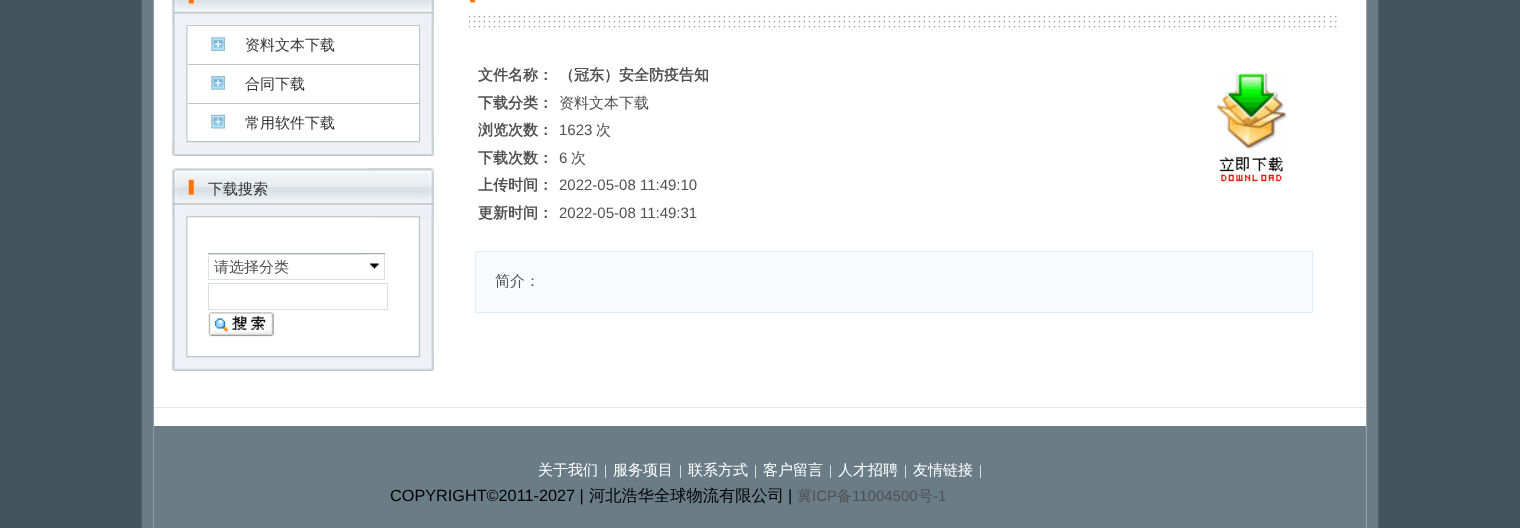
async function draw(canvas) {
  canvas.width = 1520
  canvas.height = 528
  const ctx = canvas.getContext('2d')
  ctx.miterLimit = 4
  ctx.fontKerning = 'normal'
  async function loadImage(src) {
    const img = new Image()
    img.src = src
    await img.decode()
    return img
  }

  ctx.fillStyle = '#41535d'
  ctx.fillRect(0, 0, 1520, 528)
  ctx.drawImage(await loadImage('image0.png'), 141, 0, 1238, 528)
  ctx.drawImage(await loadImage('image1.png'), 141, 0, 1238, 408)
  ctx.drawImage(await loadImage('image2.png'), 468, 0, 872, 28)
  ctx.drawImage(await loadImage('image3.png'), 1328, 15, 12, 13)
  ctx.drawImage(await loadImage('image4.png'), 172, 0, 16, 156)
  ctx.drawImage(await loadImage('image5.png'), 418, 0, 16, 156)
  ctx.drawImage(await loadImage('image6.png'), 172, 0, 262, 25)
  ctx.drawImage(await loadImage('image7.png'), 419, 0, 15, 25)
  ctx.fillStyle = '#fff'
  ctx.fillRect(418, 26, 1, 38)
  ctx.drawImage(await loadImage('image8.png'), 211, 37, 14, 14)
  ctx.fillStyle = '#c3c4c8'
  ctx.fillRect(188, 25, 231, 1)
  ctx.font = '500 15px WenQuanYi Zen Hei'
  ctx.fillStyle = '#333'
  ctx.fillText('资料文本下载', 245, 50)
  ctx.fillStyle = '#fff'
  ctx.fillRect(418, 65, 1, 38)
  ctx.drawImage(await loadImage('image9.png'), 211, 76, 14, 14)
  ctx.fillStyle = '#c3c4c8'
  ctx.fillRect(188, 64, 231, 1)
  ctx.fillStyle = '#333'
  ctx.fillText('合同下载', 245, 89)
  ctx.fillStyle = '#fff'
  ctx.fillRect(418, 104, 1, 37)
  ctx.drawImage(await loadImage('image10.png'), 211, 114, 14, 15)
  ctx.fillStyle = '#c3c4c8'
  ctx.fillRect(188, 103, 231, 1)
  ctx.fillStyle = '#333'
  ctx.fillText('常用软件下载', 245, 128)
  ctx.drawImage(await loadImage('image11.png'), 172, 141, 262, 15)
  ctx.drawImage(await loadImage('image12.png'), 420, 141, 14, 15)
  ctx.font = 'bold 15px WenQuanYi Zen Hei'
  ctx.fillStyle = '#505050'
  ctx.fillText('文件名称：', 478, 80)
  ctx.fillText('（冠东）安全防疫告知', 559, 80)
  ctx.fillText('下载分类：', 478, 108)
  ctx.font = '500 15px WenQuanYi Zen Hei'
  ctx.fillText('资料文本下载', 559, 108)
  ctx.font = 'bold 15px WenQuanYi Zen Hei'
  ctx.fillText('浏览次数：', 478, 135)
  ctx.font = '15px Liberation Sans'
  ctx.fillText('1623', 559, 135)
  ctx.font = '500 15px WenQuanYi Zen Hei'
  ctx.fillText('次', 596, 135)
  ctx.font = 'bold 15px WenQuanYi Zen Hei'
  ctx.fillText('下载次数：', 478, 163)
  ctx.font = '15px Liberation Sans'
  ctx.fillText('6', 559, 163)
  ctx.font = '500 15px WenQuanYi Zen Hei'
  ctx.fillText('次', 571, 163)
  ctx.font = 'bold 15px WenQuanYi Zen Hei'
  ctx.fillText('上传时间：', 478, 190)
  ctx.font = '15px Liberation Sans'
  ctx.fillText('2022-05-08 11:49:10', 559, 190)
  ctx.font = 'bold 15px WenQuanYi Zen Hei'
  ctx.fillText('更新时间：', 478, 218)
  ctx.font = '15px Liberation Sans'
  ctx.fillText('2022-05-08 11:49:31', 559, 218)
  ctx.drawImage(await loadImage('image13.png'), 1216, 73, 71, 109)
  ctx.fillStyle = '#f7fbfe'
  ctx.beginPath()
  ctx.rect(475.5, 251.5, 837, 61)
  ctx.fill()
  ctx.strokeStyle = '#def'
  ctx.stroke()
  ctx.font = '500 15px WenQuanYi Zen Hei'
  ctx.fillStyle = '#505050'
  ctx.fillText('简介：', 495, 286)
  ctx.drawImage(await loadImage('image14.png'), 172, 168, 16, 203)
  ctx.drawImage(await loadImage('image15.png'), 418, 168, 16, 203)
  ctx.drawImage(await loadImage('image16.png'), 172, 168, 262, 50)
  ctx.fillStyle = '#333'
  ctx.fillText('下载搜索', 208, 194)
  ctx.drawImage(await loadImage('image17.png'), 370, 168, 64, 50)
  ctx.fillStyle = '#dbdfe6'
  ctx.fillRect(208, 254, 177, 26)
  ctx.fillStyle = '#abadb3'
  ctx.fillRect(208, 253, 177, 1)
  ctx.fillStyle = '#fff'
  ctx.fillRect(209, 255, 175, 24)
  ctx.fillStyle = '#505050'
  ctx.fillText('请选择分类', 214, 272)
  ctx.drawImage(await loadImage('image18.png'), 364, 254, 20, 15)
  ctx.strokeStyle = '#ddd'
  ctx.strokeRect(208.5, 283.5, 179, 26)
  ctx.drawImage(await loadImage('image19.png'), 208, 312, 66, 25)
  ctx.drawImage(await loadImage('image11.png'), 172, 356, 262, 15)
  ctx.drawImage(await loadImage('image12.png'), 420, 356, 14, 15)
  ctx.drawImage(await loadImage('image20.png'), 141, 407, 1238, 121)
  ctx.fillStyle = '#6a7c86'
  ctx.fillRect(154, 426, 1212, 102)
  ctx.fillStyle = '#fff'
  ctx.fillText('关于我们', 538, 475)
  ctx.font = '14px Liberation Serif'
  ctx.fillText('|', 604, 475)
  ctx.font = '500 15px WenQuanYi Zen Hei'
  ctx.fillText('服务项目', 613, 475)
  ctx.font = '14px Liberation Serif'
  ctx.fillText('|', 679, 475)
  ctx.font = '500 15px WenQuanYi Zen Hei'
  ctx.fillText('联系方式', 688, 475)
  ctx.font = '14px Liberation Serif'
  ctx.fillText('|', 754, 475)
  ctx.font = '500 15px WenQuanYi Zen Hei'
  ctx.fillText('客户留言', 763, 475)
  ctx.font = '14px Liberation Serif'
  ctx.fillText('|', 829, 475)
  ctx.font = '500 15px WenQuanYi Zen Hei'
  ctx.fillText('人才招聘', 838, 475)
  ctx.font = '14px Liberation Serif'
  ctx.fillText('|', 904, 475)
  ctx.font = '500 15px WenQuanYi Zen Hei'
  ctx.fillText('友情链接', 913, 475)
  ctx.font = '14px Liberation Serif'
  ctx.fillText('|', 979, 475)
  ctx.font = '16.25px Liberation Sans'
  ctx.fillStyle = '#000'
  ctx.fillText('COPYRIGHT©2011-2027 |', 390, 501)
  ctx.font = '500 16.25px WenQuanYi Zen Hei'
  ctx.fillText('河北浩华全球物流有限公司', 589, 501)
  ctx.font = '16.25px Liberation Sans'
  ctx.fillText('|', 788, 501)
  ctx.font = '500 15px WenQuanYi Zen Hei'
  ctx.fillStyle = '#505050'
  ctx.fillText('冀', 797, 501)
  ctx.font = '15px Liberation Sans'
  ctx.fillText('ICP', 812, 501)
  ctx.font = '500 15px WenQuanYi Zen Hei'
  ctx.fillText('备', 837, 501)
  ctx.font = '15px Liberation Sans'
  ctx.fillText('11004500', 852, 501)
  ctx.font = '500 15px WenQuanYi Zen Hei'
  ctx.fillText('号', 918, 501)
  ctx.font = '15px Liberation Sans'
  ctx.fillText('-1', 933, 501)
}

draw(document.querySelector('canvas'))
